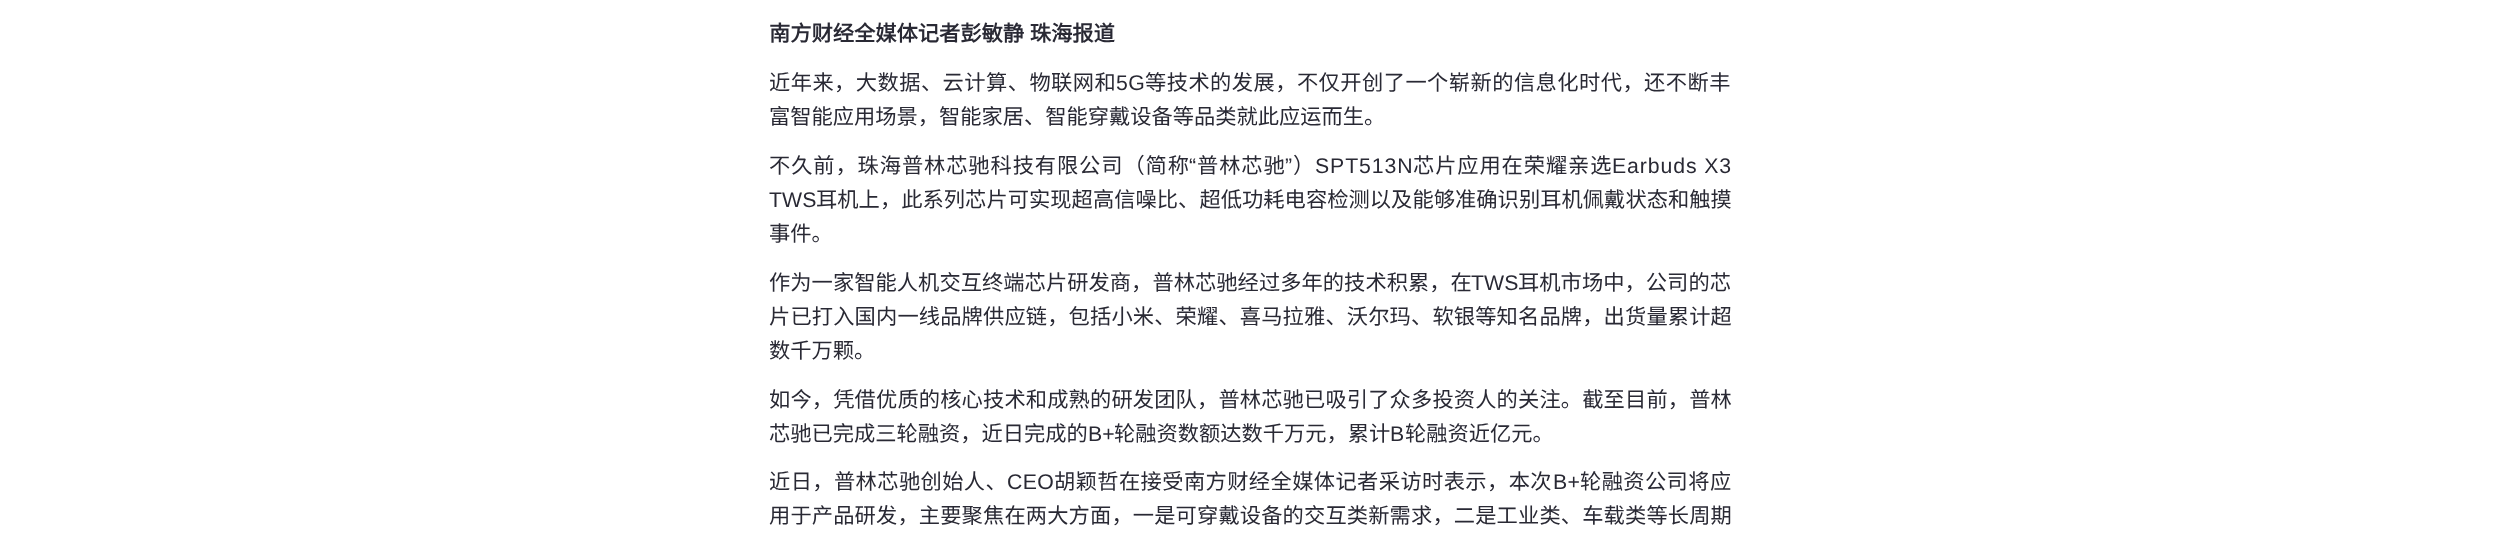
async function draw(canvas) {
  canvas.width = 2499
  canvas.height = 542
  const ctx = canvas.getContext('2d')
  ctx.miterLimit = 4
  ctx.fontKerning = 'normal'

  ctx.fillStyle = '#fff'
  ctx.fillRect(0, 0, 2499, 542)
  ctx.wordSpacing = '1px'
  ctx.font = 'bold 21.25px Noto Sans CJK SC'
  ctx.fillStyle = '#292934'
  ctx.fillText('南方财经全媒体记者彭敏静 珠海报道', 769, 41)
  ctx.letterSpacing = '0.45px'
  ctx.wordSpacing = '0px'
  ctx.font = '21.25px Noto Sans CJK SC'
  ctx.fillText('近年来，大数据、云计算、物联网和', 769, 90)
  ctx.font = '21.25px Liberation Sans'
  ctx.fillText('5G', 1116, 90)
  ctx.font = '21.25px Noto Sans CJK SC'
  ctx.fillText('等技术的发展，不仅开创了一个崭新的信息化时代，还不断丰', 1145, 90)
  ctx.letterSpacing = '0px'
  ctx.fillText('富智能应用场景，智能家居、智能穿戴设备等品类就此应运而生。', 769, 124)
  ctx.letterSpacing = '0.9px'
  ctx.fillText('不久前，珠海普林芯驰科技有限公司（简称', 769, 173)
  ctx.font = '21.25px Liberation Sans'
  ctx.fillText('“', 1189, 173)
  ctx.font = '21.25px Noto Sans CJK SC'
  ctx.fillText('普林芯驰', 1197, 173)
  ctx.font = '21.25px Liberation Sans'
  ctx.fillText('”', 1285, 173)
  ctx.font = '21.25px Noto Sans CJK SC'
  ctx.fillText('）', 1293, 173)
  ctx.font = '21.25px Liberation Sans'
  ctx.fillText('SPT513N', 1315, 173)
  ctx.font = '21.25px Noto Sans CJK SC'
  ctx.fillText('芯片应用在荣耀亲选', 1413, 173)
  ctx.font = '21.25px Liberation Sans'
  ctx.fillText('Earbuds X3', 1612, 173)
  ctx.letterSpacing = '0.05px'
  ctx.fillText('TWS', 769, 207)
  ctx.font = '21.25px Noto Sans CJK SC'
  ctx.fillText('耳机上，此系列芯片可实现超高信噪比、超低功耗电容检测以及能够准确识别耳机佩戴状态和触摸', 816, 207)
  ctx.letterSpacing = '0px'
  ctx.fillText('事件。', 769, 241)
  ctx.letterSpacing = '0.05px'
  ctx.fillText('作为一家智能人机交互终端芯片研发商，普林芯驰经过多年的技术积累，在', 769, 290)
  ctx.font = '21.25px Liberation Sans'
  ctx.fillText('TWS', 1471, 290)
  ctx.font = '21.25px Noto Sans CJK SC'
  ctx.fillText('耳机市场中，公司的芯', 1518, 290)
  ctx.letterSpacing = '0.15px'
  ctx.fillText('片已打入国内一线品牌供应链，包括小米、荣耀、喜马拉雅、沃尔玛、软银等知名品牌，出货量累计超', 769, 324)
  ctx.letterSpacing = '0px'
  ctx.fillText('数千万颗。', 769, 358)
  ctx.letterSpacing = '0.15px'
  ctx.fillText('如今，凭借优质的核心技术和成熟的研发团队，普林芯驰已吸引了众多投资人的关注。截至目前，普林', 769, 407)
  ctx.letterSpacing = '0px'
  ctx.fillText('芯驰已完成三轮融资，近日完成的', 769, 441)
  ctx.font = '21.25px Liberation Sans'
  ctx.fillText('B+', 1088, 441)
  ctx.font = '21.25px Noto Sans CJK SC'
  ctx.fillText('轮融资数额达数千万元，累计', 1114, 441)
  ctx.font = '21.25px Liberation Sans'
  ctx.fillText('B', 1390, 441)
  ctx.font = '21.25px Noto Sans CJK SC'
  ctx.fillText('轮融资近亿元。', 1405, 441)
  ctx.letterSpacing = '0.4px'
  ctx.fillText('近日，普林芯驰创始人、', 769, 489)
  ctx.font = '21.25px Liberation Sans'
  ctx.fillText('CEO', 1007, 489)
  ctx.font = '21.25px Noto Sans CJK SC'
  ctx.fillText('胡颖哲在接受南方财经全媒体记者采访时表示，本次', 1054, 489)
  ctx.font = '21.25px Liberation Sans'
  ctx.fillText('B+', 1553, 489)
  ctx.font = '21.25px Noto Sans CJK SC'
  ctx.fillText('轮融资公司将应', 1580, 489)
  ctx.letterSpacing = '0.15px'
  ctx.fillText('用于产品研发，主要聚焦在两大方面，一是可穿戴设备的交互类新需求，二是工业类、车载类等长周期', 769, 523)
}

draw(document.querySelector('canvas'))
